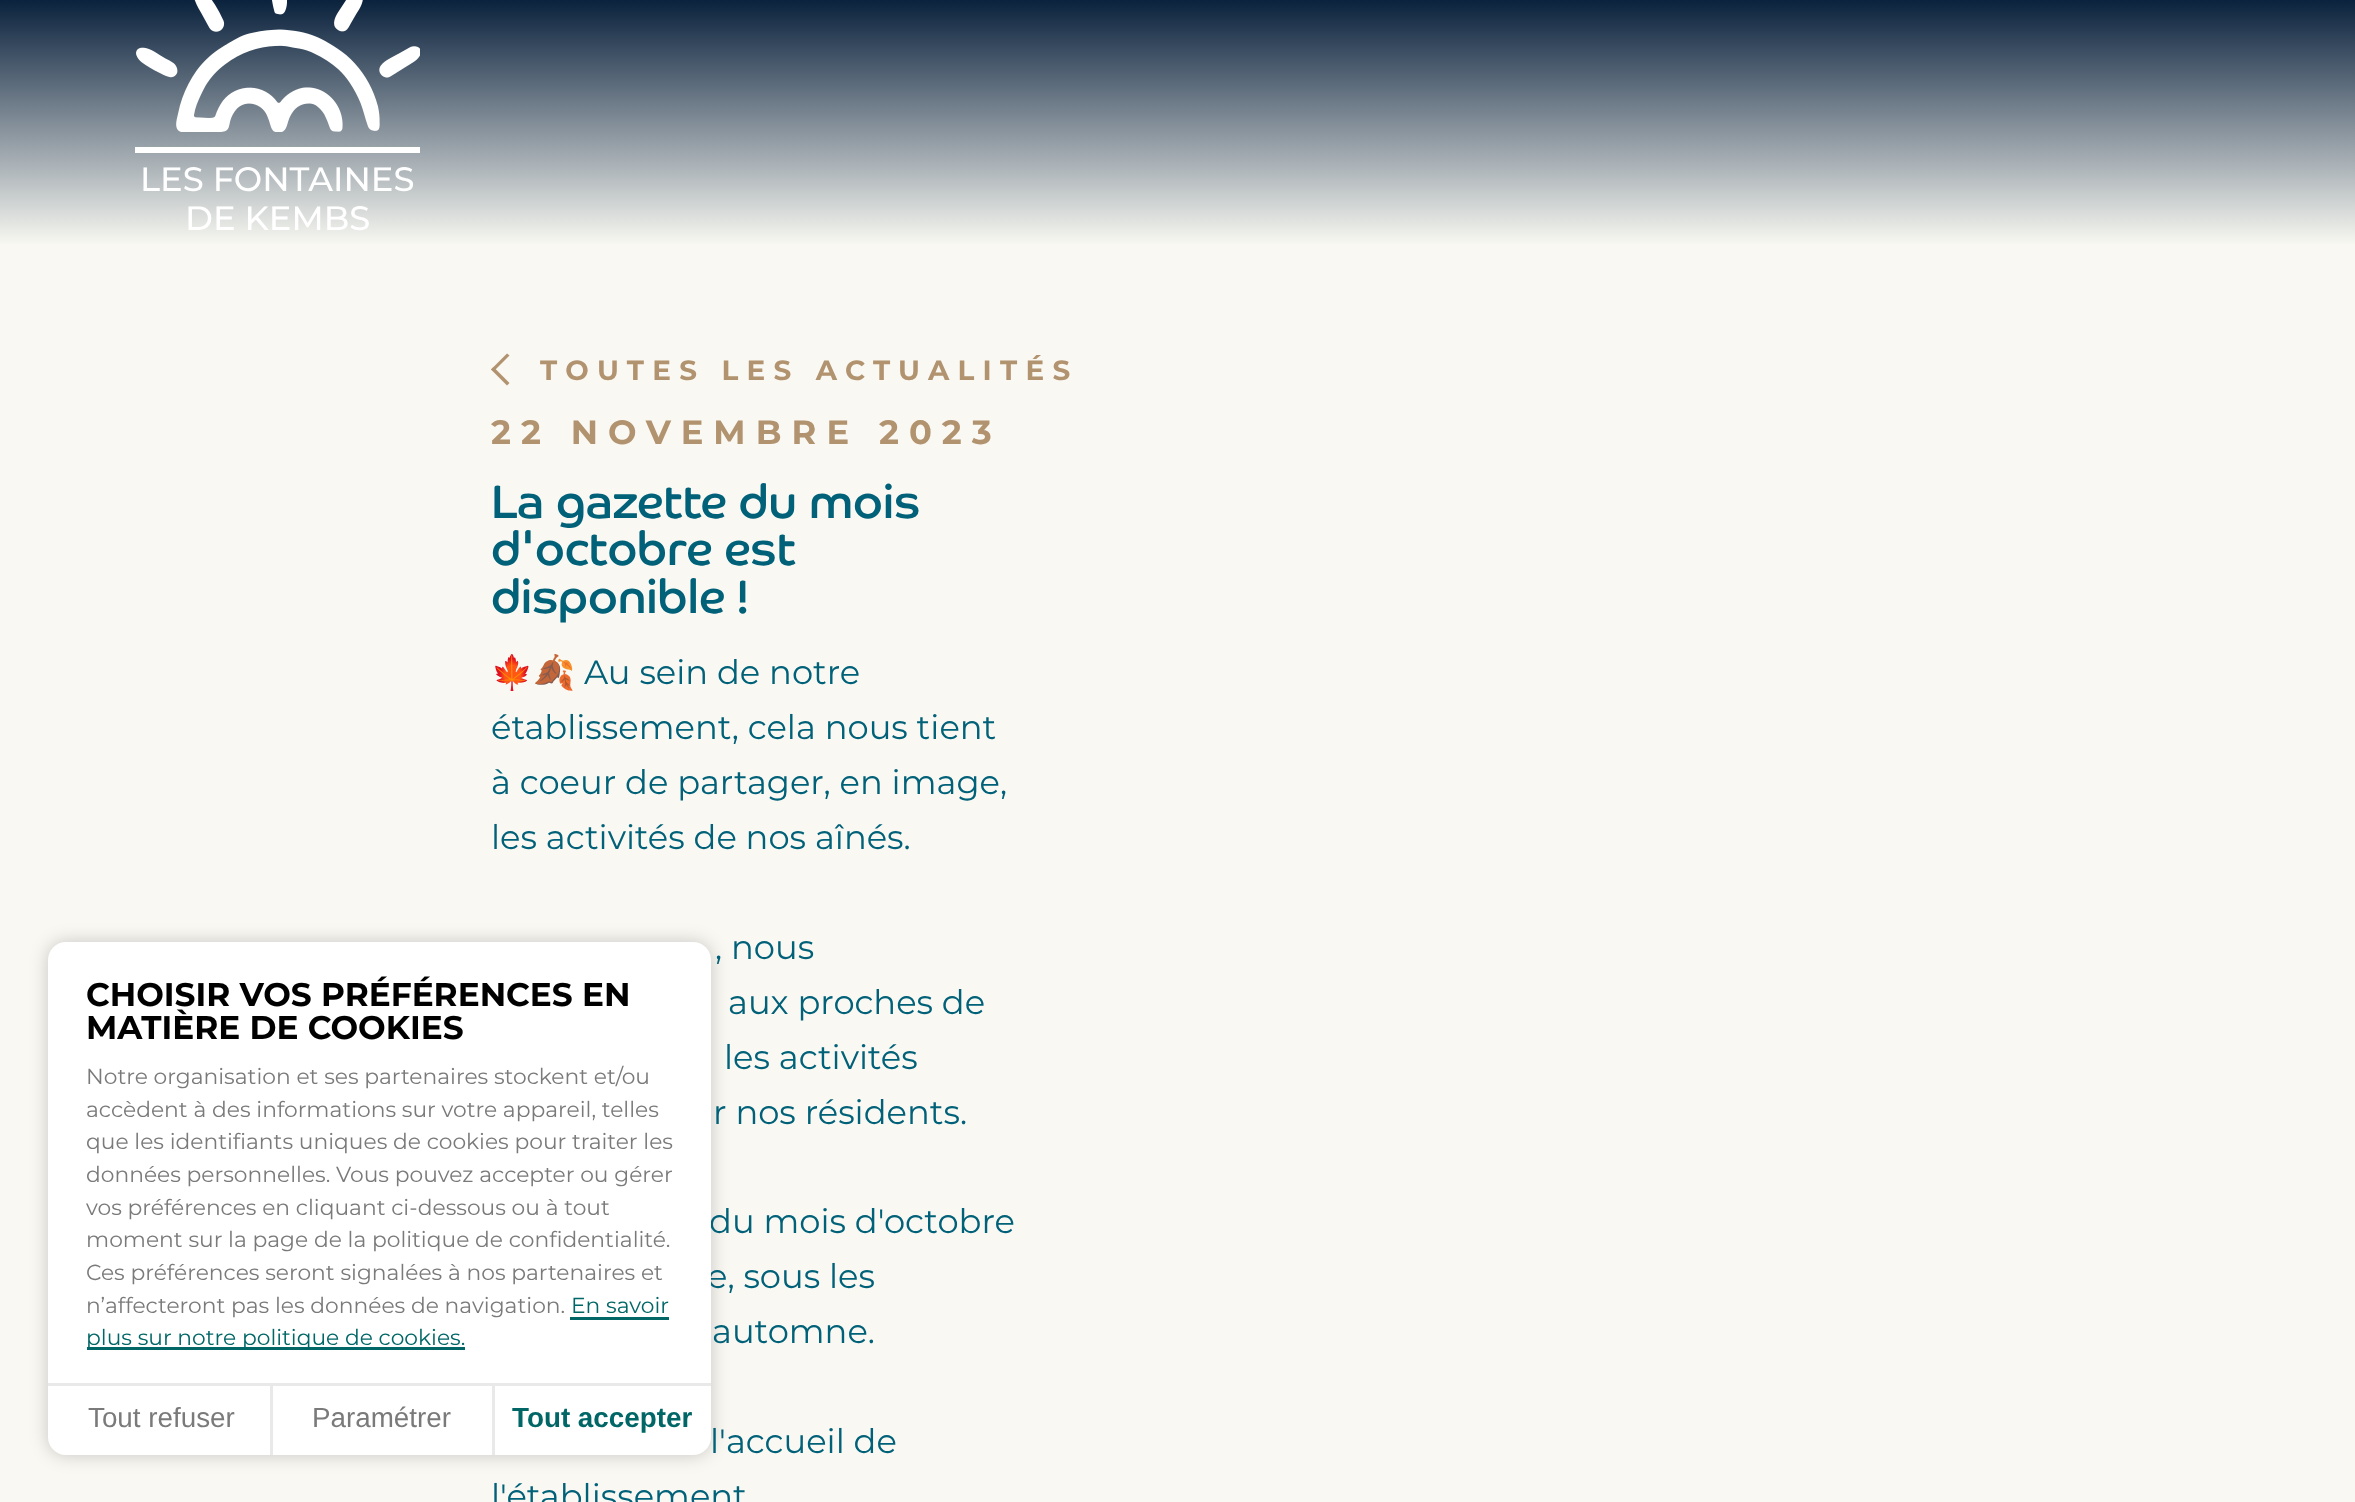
async function draw(canvas) {
  canvas.width = 2355
  canvas.height = 1502
  const ctx = canvas.getContext('2d')
  ctx.miterLimit = 4
  ctx.fontKerning = 'normal'
  async function loadImage(src) {
    const img = new Image()
    img.src = src
    await img.decode()
    return img
  }
  let gradient

  ctx.fillStyle = '#faf8f3'
  ctx.fillRect(0, 0, 2355, 1502)
  gradient = ctx.createLinearGradient(1178, 246, 1178, 0)
  gradient.addColorStop(0, '#f9f9f2')
  gradient.addColorStop(0.3, '#b1b8bc')
  gradient.addColorStop(0.9, '#22374f')
  gradient.addColorStop(1, '#0a223d')
  ctx.fillStyle = gradient
  ctx.fillRect(0, 0, 2355, 244)
  ctx.drawImage(await loadImage('image0.png'), 136, 0, 284, 132)
  ctx.fillStyle = '#fff'
  ctx.fillRect(135, 147, 285, 6)
  ctx.font = '500 33.75px Montserrat'
  ctx.fillText('LES FONTAINES', 140, 191)
  ctx.fillText('DE KEMBS', 185, 230)
  ctx.fillStyle = '#00000033'
  ctx.filter = 'blur(9px)'
  ctx.beginPath()
  ctx.roundRect(48, 942, 663, 513, 18)
  ctx.fill()
  ctx.filter = 'none'
  ctx.font = '33.75px Montserrat'
  ctx.fillStyle = '#006178'
  ctx.fillText('du mois d\'octobre', 709, 1233)
  ctx.fillText('e, sous les', 707, 1288)
  ctx.fillStyle = '#fff'
  ctx.beginPath()
  ctx.roundRect(48, 942, 663, 513, 18)
  ctx.fill()
  ctx.font = 'bold 32.75px Montserrat'
  ctx.fillStyle = '#000'
  ctx.fillText('CHOISIR VOS PRÉFÉRENCES EN', 86, 1006)
  ctx.fillText('MATIÈRE DE COOKIES', 86, 1039)
  ctx.font = '21.8px Montserrat'
  ctx.fillStyle = '#7a7a7a'
  ctx.fillText('Notre organisation et ses partenaires stockent et/ou', 86, 1084)
  ctx.fillText('accèdent à des informations sur votre appareil, telles', 86, 1117)
  ctx.fillText('que les identifiants uniques de cookies pour traiter les', 86, 1149)
  ctx.fillText('données personnelles. Vous pouvez accepter ou gérer', 86, 1182)
  ctx.fillText('vos préférences en cliquant ci-dessous ou à tout', 86, 1215)
  ctx.fillText('moment sur la page de la politique de confidentialité.', 86, 1247)
  ctx.fillText('Ces préférences seront signalées à nos partenaires et', 86, 1280)
  ctx.fillText('n’affecteront pas les données de navigation.', 86, 1313)
  ctx.fillStyle = '#066'
  ctx.fillText('En savoir', 571, 1313)
  ctx.fillRect(570, 1317, 99, 3)
  ctx.fillRect(87, 1347, 378, 3)
  ctx.fillText('plus sur notre politique de cookies.', 86, 1345)
  ctx.fillStyle = '#e9e9e9'
  ctx.fillRect(48, 1383, 663, 3)
  ctx.font = '27.8px Liberation Sans'
  ctx.fillStyle = '#7a7a7a'
  ctx.fillText('Tout refuser', 88, 1427)
  ctx.fillStyle = '#e9e9e9'
  ctx.fillRect(270, 1386, 3, 69)
  ctx.fillStyle = '#7a7a7a'
  ctx.fillText('Paramétrer', 312, 1427)
  ctx.fillStyle = '#e9e9e9'
  ctx.fillRect(492, 1386, 3, 69)
  ctx.font = 'bold 27.8px Liberation Sans'
  ctx.fillStyle = '#066'
  ctx.fillText('Tout accepter', 512, 1427)
  ctx.fillStyle = '#b2936f'
  ctx.beginPath()
  ctx.moveTo(491, 369.5)
  ctx.lineTo(507, 353.5)
  ctx.lineTo(509.5, 355.5)
  ctx.lineTo(493.5, 371.5)
  ctx.closePath()
  ctx.fill()
  ctx.beginPath()
  ctx.moveTo(491, 369.5)
  ctx.lineTo(493.5, 367)
  ctx.lineTo(509.5, 383)
  ctx.lineTo(507, 385.5)
  ctx.closePath()
  ctx.fill()
  ctx.letterSpacing = '8.3px'
  ctx.font = 'bold 27.8px Montserrat'
  ctx.fillText('TOUTES LES ACTUALITÉS', 540, 380)
  ctx.letterSpacing = '10.1px'
  ctx.font = 'bold 33.75px Montserrat'
  ctx.fillText('22 NOVEMBRE 2023', 491, 444)
  ctx.letterSpacing = '0px'
  ctx.font = '47.5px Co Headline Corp'
  ctx.fillStyle = '#006178'
  ctx.fillText('La gazette du mois', 491, 518)
  ctx.fillText('d\'octobre est', 491, 565)
  ctx.fillText('disponible !', 491, 613)
  ctx.font = '33.75px Noto Color Emoji'
  ctx.fillText('🍁🍂', 491, 684)
  ctx.font = '33.75px Montserrat'
  ctx.fillText('Au sein de notre', 584, 684)
  ctx.fillText('établissement, cela nous tient', 491, 739)
  ctx.fillText('à coeur de partager, en image,', 491, 794)
  ctx.fillText('les activités de nos aînés.', 491, 849)
  ctx.fillText(', nous', 715, 959)
  ctx.fillText('aux proches de', 728, 1014)
  ctx.fillText('les activités', 724, 1069)
  ctx.fillText('r nos résidents.', 713, 1124)
  ctx.fillText('automne.', 712, 1343)
  ctx.fillText('l\'accueil de', 710, 1453)
  ctx.fillText('l\'établissement', 491, 1508)
}

draw(document.querySelector('canvas'))
